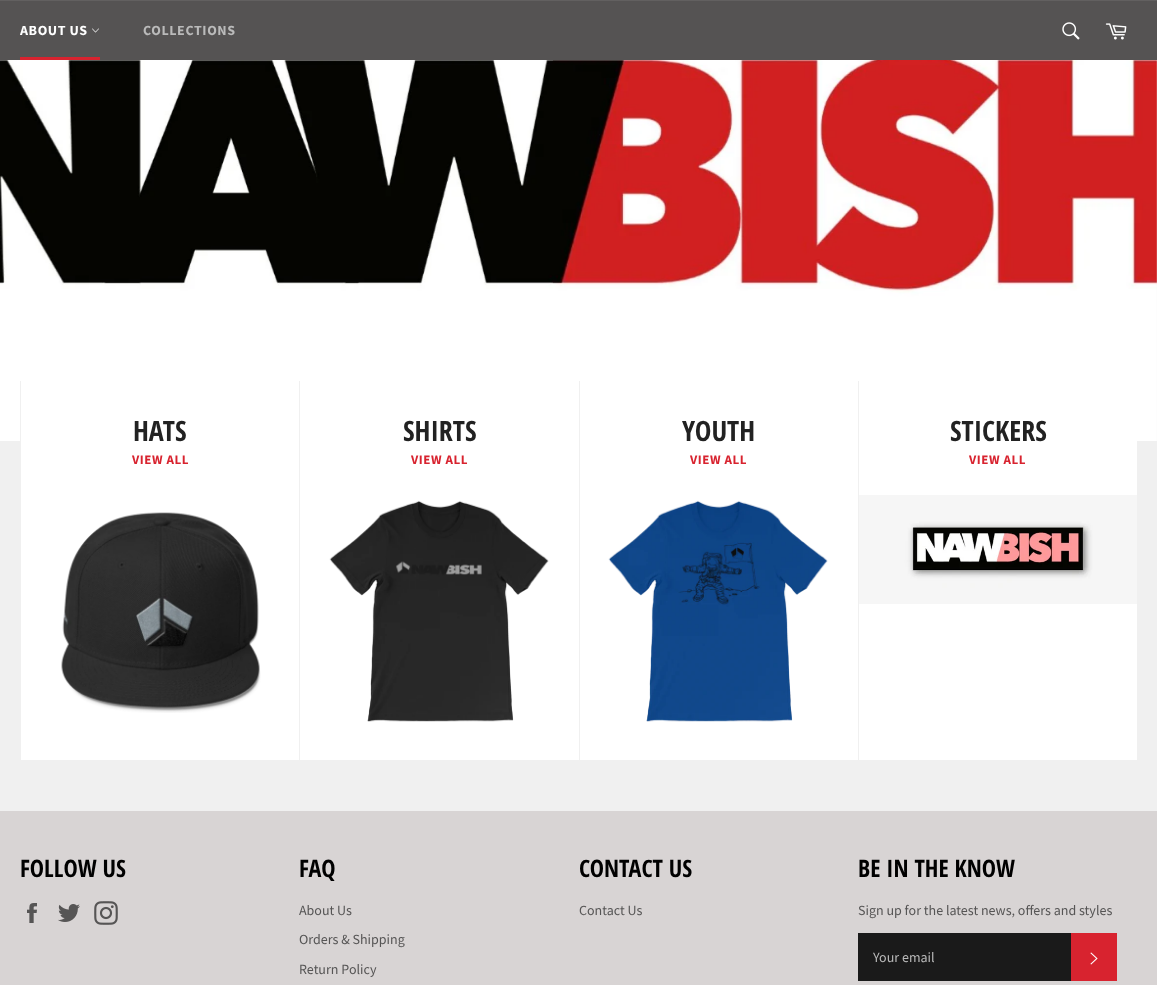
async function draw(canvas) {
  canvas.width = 1157
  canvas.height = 985
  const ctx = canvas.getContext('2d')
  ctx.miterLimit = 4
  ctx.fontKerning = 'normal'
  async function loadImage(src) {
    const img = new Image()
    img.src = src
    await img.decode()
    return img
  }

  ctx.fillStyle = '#f0f0f0'
  ctx.fillRect(0, 0, 1157, 985)
  ctx.fillStyle = '#555353'
  ctx.fillRect(0, 1, 1157, 59)
  ctx.fillStyle = '#626060'
  ctx.fillRect(0, 0, 1157, 1)
  ctx.letterSpacing = '0.6px'
  ctx.font = 'bold 14px Source Sans Pro'
  ctx.fillStyle = '#fff'
  ctx.fillText('ABOUT US', 20, 35)
  ctx.drawImage(await loadImage('image0.png'), 92, 28, 7, 5)
  ctx.fillStyle = '#d8232f'
  ctx.fillRect(20, 57, 80, 3)
  ctx.fillStyle = '#bababa'
  ctx.fillText('COLLECTIONS', 143, 35)
  ctx.drawImage(await loadImage('image1.png'), 1062, 22, 18, 18)
  ctx.drawImage(await loadImage('image2.png'), 1105, 23, 22, 17)
  ctx.drawImage(await loadImage('image3.png'), 0, 60, 1157, 381)
  ctx.fillStyle = '#fff'
  ctx.fillRect(21, 441, 278, 319)
  ctx.fillStyle = '#f0f0f0'
  ctx.fillRect(20, 381, 1, 60)
  ctx.letterSpacing = '0px'
  ctx.font = 'bold 28px Open Sans Condensed'
  ctx.fillStyle = '#222'
  ctx.fillText('HATS', 133, 441)
  ctx.letterSpacing = '0.6px'
  ctx.font = 'bold 13px Source Sans Pro'
  ctx.fillStyle = '#d8232f'
  ctx.fillText('VIEW ALL', 132, 464)
  ctx.drawImage(await loadImage('image4.png'), 61, 512, 200, 201)
  ctx.fillStyle = '#fff'
  ctx.fillRect(300, 441, 279, 319)
  ctx.fillStyle = '#f0f0f0'
  ctx.fillRect(299, 381, 1, 60)
  ctx.letterSpacing = '0px'
  ctx.font = 'bold 28px Open Sans Condensed'
  ctx.fillStyle = '#222'
  ctx.fillText('SHIRTS', 403, 441)
  ctx.letterSpacing = '0.6px'
  ctx.font = 'bold 13px Source Sans Pro'
  ctx.fillStyle = '#d8232f'
  ctx.fillText('VIEW ALL', 411, 464)
  ctx.drawImage(await loadImage('image5.png'), 329, 500, 220, 222)
  ctx.fillStyle = '#fff'
  ctx.fillRect(580, 441, 278, 319)
  ctx.fillStyle = '#f0f0f0'
  ctx.fillRect(579, 381, 1, 60)
  ctx.letterSpacing = '0px'
  ctx.font = 'bold 28px Open Sans Condensed'
  ctx.fillStyle = '#222'
  ctx.fillText('YOUTH', 682, 441)
  ctx.letterSpacing = '0.6px'
  ctx.font = 'bold 13px Source Sans Pro'
  ctx.fillStyle = '#d8232f'
  ctx.fillText('VIEW ALL', 690, 464)
  ctx.drawImage(await loadImage('image6.png'), 608, 500, 220, 222)
  ctx.fillStyle = '#fff'
  ctx.fillRect(859, 441, 278, 319)
  ctx.fillStyle = '#f0f0f0'
  ctx.fillRect(858, 381, 1, 60)
  ctx.letterSpacing = '0px'
  ctx.font = 'bold 28px Open Sans Condensed'
  ctx.fillStyle = '#222'
  ctx.fillText('STICKERS', 950, 441)
  ctx.letterSpacing = '0.6px'
  ctx.font = 'bold 13px Source Sans Pro'
  ctx.fillStyle = '#d8232f'
  ctx.fillText('VIEW ALL', 969, 464)
  ctx.drawImage(await loadImage('image7.png'), 859, 495, 278, 109)
  ctx.fillStyle = '#d8d4d4'
  ctx.fillRect(0, 811, 1157, 174)
  ctx.letterSpacing = '0px'
  ctx.font = 'bold 24px Open Sans Condensed'
  ctx.fillStyle = '#000'
  ctx.fillText('FOLLOW US', 20, 877)
  ctx.drawImage(await loadImage('image8.png'), 27, 903, 10, 20)
  ctx.drawImage(await loadImage('image9.png'), 58, 904, 22, 18)
  ctx.drawImage(await loadImage('image10.png'), 94, 901, 24, 24)
  ctx.fillText('FAQ', 299, 877)
  ctx.font = '14px Source Sans Pro'
  ctx.fillStyle = '#565555'
  ctx.fillText('About Us', 299, 915)
  ctx.fillText('Orders & Shipping', 299, 944)
  ctx.fillText('Return Policy', 299, 974)
  ctx.font = 'bold 24px Open Sans Condensed'
  ctx.fillStyle = '#000'
  ctx.fillText('CONTACT US', 579, 877)
  ctx.font = '14px Source Sans Pro'
  ctx.fillStyle = '#565555'
  ctx.fillText('Contact Us', 579, 915)
  ctx.font = 'bold 24px Open Sans Condensed'
  ctx.fillStyle = '#000'
  ctx.fillText('BE IN THE KNOW', 858, 877)
  ctx.font = '14px Source Sans Pro'
  ctx.fillStyle = '#565555'
  ctx.fillText('Sign up for the latest news, offers and styles', 858, 915)
  ctx.fillStyle = '#1a1a1a'
  ctx.fillRect(858, 933, 213, 48)
  ctx.fillStyle = '#bababa'
  ctx.fillText('Your email', 873, 962)
  ctx.fillStyle = '#d8232f'
  ctx.fillRect(1071, 933, 46, 48)
  ctx.drawImage(await loadImage('image11.png'), 1090, 952, 8, 13)
}

draw(document.querySelector('canvas'))
